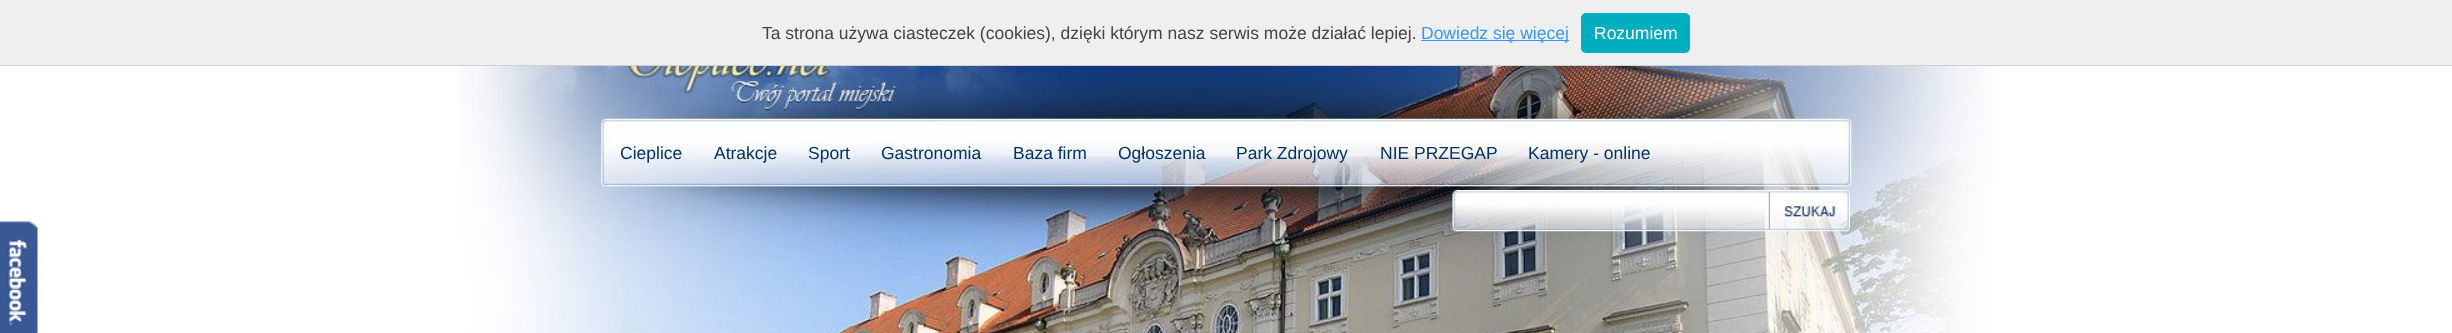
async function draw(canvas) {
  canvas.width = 2452
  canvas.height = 333
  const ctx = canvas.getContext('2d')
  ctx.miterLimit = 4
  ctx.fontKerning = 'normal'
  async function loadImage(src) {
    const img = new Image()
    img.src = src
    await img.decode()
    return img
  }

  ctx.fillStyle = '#fff'
  ctx.fillRect(0, 0, 2452, 333)
  ctx.drawImage(await loadImage('image0.png'), 459, 66, 1534, 267)
  ctx.fillStyle = '#efefef'
  ctx.fillRect(0, 0, 2452, 65)
  ctx.fillStyle = '#d3d0d0'
  ctx.fillRect(0, 65, 2452, 1)
  ctx.font = '17.5px Liberation Sans'
  ctx.fillStyle = '#444'
  ctx.fillText('Ta strona używa ciasteczek (cookies), dzięki którym nasz serwis może działać lepiej.', 762, 39)
  ctx.fillStyle = '#39f'
  ctx.fillRect(1421, 40, 148, 1)
  ctx.fillText('Dowiedz się więcej', 1421, 39)
  ctx.fillStyle = '#00afbf'
  ctx.beginPath()
  ctx.roundRect(1581, 13, 109, 40, 5)
  ctx.fill()
  ctx.fillStyle = '#fff'
  ctx.fillText('Rozumiem', 1594, 39)
  ctx.fillStyle = '#036'
  ctx.fillText('Cieplice', 620, 159)
  ctx.fillText('Atrakcje', 714, 159)
  ctx.fillText('Sport', 808, 159)
  ctx.fillText('Gastronomia', 881, 159)
  ctx.fillText('Baza firm', 1013, 159)
  ctx.fillText('Ogłoszenia', 1118, 159)
  ctx.fillText('Park Zdrojowy', 1236, 159)
  ctx.fillText('NIE PRZEGAP', 1380, 159)
  ctx.fillText('Kamery - online', 1528, 159)
  ctx.drawImage(await loadImage('image1.png'), 1452, 190, 398, 42)
  ctx.drawImage(await loadImage('image2.png'), 0, 221, 38, 112)
  ctx.fillStyle = '#00000008'
  ctx.fillRect(1083, 332, 269, 1)
}

draw(document.querySelector('canvas'))
